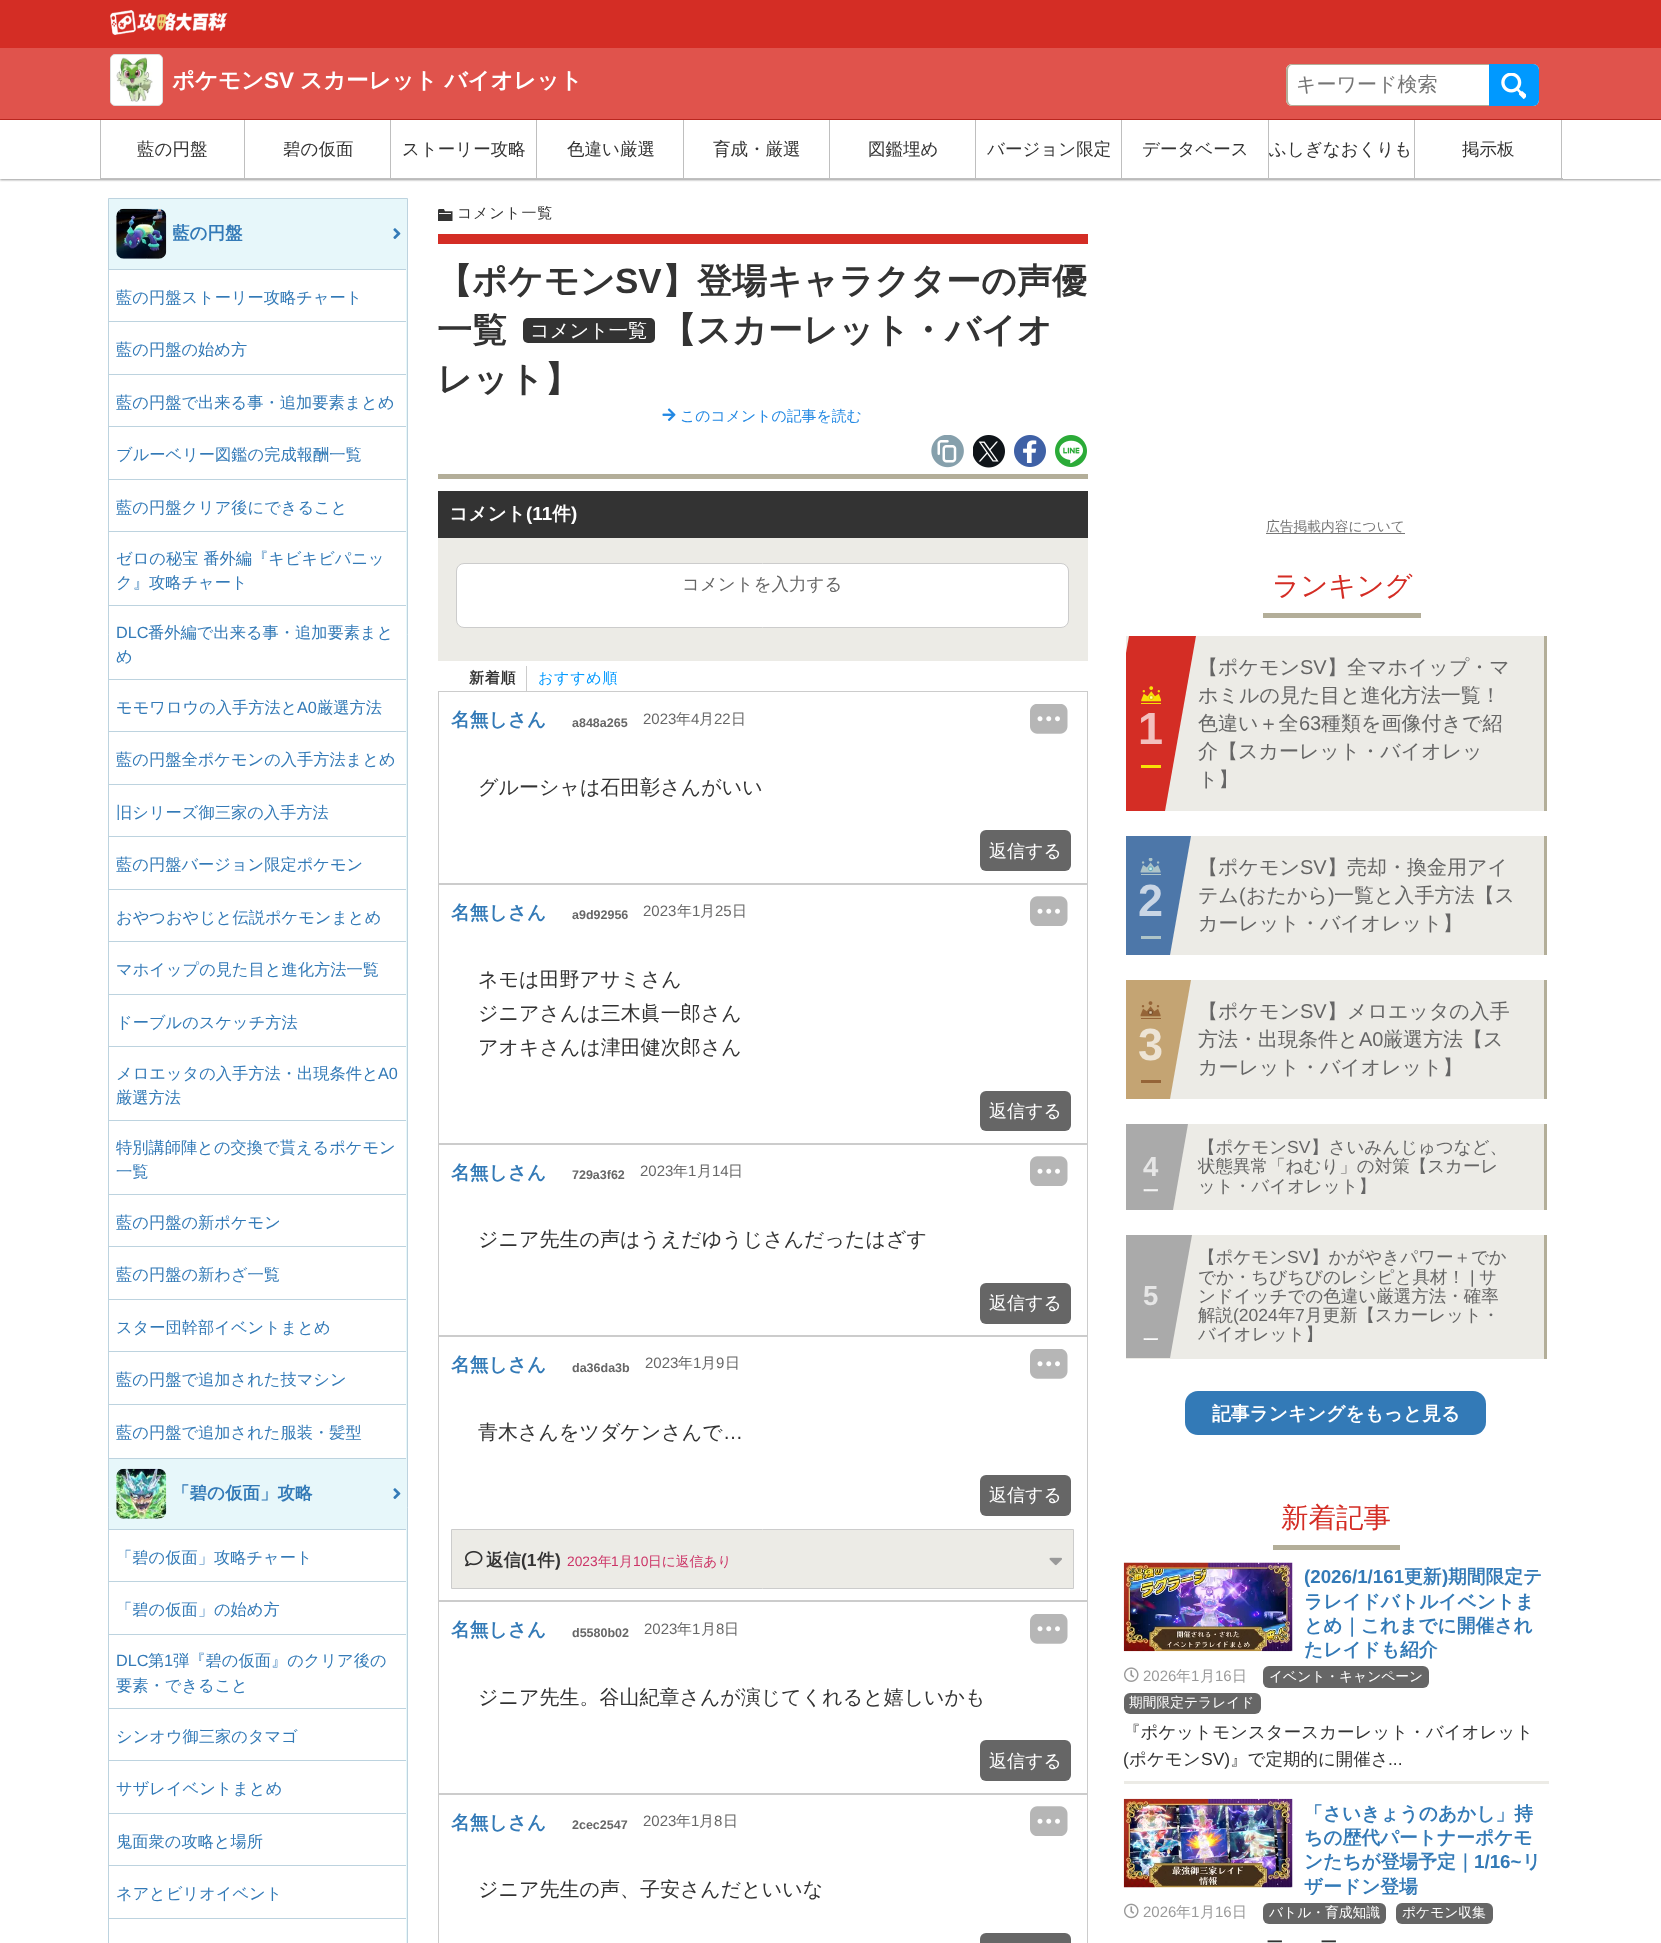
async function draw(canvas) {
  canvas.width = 1661
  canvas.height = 1943
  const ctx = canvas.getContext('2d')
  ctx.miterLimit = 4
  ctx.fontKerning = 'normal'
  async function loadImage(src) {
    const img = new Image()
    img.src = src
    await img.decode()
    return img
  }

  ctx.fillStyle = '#fff'
  ctx.fillRect(0, 0, 1661, 1943)
  ctx.fillStyle = '#d42d25'
  ctx.fillRect(0, 0, 1661, 48)
  ctx.drawImage(await loadImage('image0.png'), 110, 10, 118, 25)
  ctx.fillStyle = '#e0534c'
  ctx.fillRect(0, 48, 1661, 71)
  ctx.fillStyle = '#bf2821'
  ctx.fillRect(0, 119, 1661, 1)
  ctx.fillStyle = '#fff'
  ctx.beginPath()
  ctx.roundRect(110.5, 54.5, 52, 51, 4.5)
  ctx.fill()
  ctx.strokeStyle = '#ddd'
  ctx.stroke()
  ctx.drawImage(await loadImage('image1.png'), 116, 57, 37, 45)
  ctx.font = 'bold 22.5px WenQuanYi Zen Hei'
  ctx.fillText('ポケモン', 172, 88)
  ctx.font = 'bold 22.5px Liberation Sans'
  ctx.fillText('SV', 264, 88)
  ctx.font = 'bold 22.5px WenQuanYi Zen Hei'
  ctx.fillText('スカーレット バイオレット', 300, 88)
  ctx.beginPath()
  ctx.roundRect(1286, 64, 253, 42, 6)
  ctx.fill()
  ctx.fillStyle = '#b3ae99'
  ctx.beginPath()
  ctx.moveTo(1292, 64)
  ctx.lineTo(1532, 64)
  ctx.bezierCurveTo(1536, 64, 1539, 67, 1539, 70)
  ctx.lineTo(1539, 100)
  ctx.bezierCurveTo(1539, 103, 1536, 106, 1532, 106)
  ctx.lineTo(1292, 106)
  ctx.bezierCurveTo(1289, 106, 1286, 103, 1286, 100)
  ctx.lineTo(1286, 70)
  ctx.bezierCurveTo(1286, 67, 1289, 64, 1292, 64)
  ctx.closePath()
  ctx.moveTo(1292, 65)
  ctx.lineTo(1532, 65)
  ctx.bezierCurveTo(1536, 65, 1539, 67, 1539, 70)
  ctx.lineTo(1539, 100)
  ctx.bezierCurveTo(1539, 103, 1536, 105, 1532, 105)
  ctx.lineTo(1292, 105)
  ctx.bezierCurveTo(1290, 105, 1288, 103, 1288, 100)
  ctx.lineTo(1288, 70)
  ctx.bezierCurveTo(1288, 67, 1290, 65, 1292, 65)
  ctx.closePath()
  ctx.fill('evenodd')
  ctx.font = '500 20px WenQuanYi Zen Hei'
  ctx.fillStyle = '#757575'
  ctx.fillText('キーワード検索', 1296, 91)
  ctx.fillStyle = '#09f'
  ctx.beginPath()
  ctx.roundRect(1489, 64, 50, 42, [0, 6, 6, 0])
  ctx.fill()
  ctx.drawImage(await loadImage('image2.png'), 1501, 73, 25, 26)
  ctx.fillStyle = '#00000066'
  ctx.filter = 'blur(1px)'
  ctx.beginPath()
  ctx.rect(0, 121, 1661, 59)
  ctx.fill()
  ctx.filter = 'none'
  ctx.fillStyle = '#fff'
  ctx.fillRect(0, 120, 1661, 59)
  ctx.fillStyle = '#bfbfbf'
  ctx.fillRect(244, 120, 1, 59)
  ctx.fillRect(100, 178, 145, 1)
  ctx.fillRect(100, 120, 1, 59)
  ctx.font = '500 17.5px WenQuanYi Zen Hei'
  ctx.fillStyle = '#333'
  ctx.fillText('藍の円盤', 137, 155)
  ctx.fillStyle = '#bfbfbf'
  ctx.fillRect(390, 120, 1, 59)
  ctx.fillRect(245, 178, 146, 1)
  ctx.fillStyle = '#333'
  ctx.fillText('碧の仮面', 283, 155)
  ctx.fillStyle = '#bfbfbf'
  ctx.fillRect(536, 120, 1, 59)
  ctx.fillRect(391, 178, 147, 1)
  ctx.fillStyle = '#333'
  ctx.fillText('ストーリー攻略', 402, 155)
  ctx.fillStyle = '#bfbfbf'
  ctx.fillRect(683, 120, 1, 59)
  ctx.fillRect(538, 178, 146, 1)
  ctx.fillStyle = '#333'
  ctx.fillText('色違い厳選', 567, 155)
  ctx.fillStyle = '#bfbfbf'
  ctx.fillRect(829, 120, 1, 59)
  ctx.fillRect(684, 178, 146, 1)
  ctx.fillStyle = '#333'
  ctx.fillText('育成・厳選', 713, 155)
  ctx.fillStyle = '#bfbfbf'
  ctx.fillRect(975, 120, 1, 59)
  ctx.fillRect(830, 178, 146, 1)
  ctx.fillStyle = '#333'
  ctx.fillText('図鑑埋め', 868, 155)
  ctx.fillStyle = '#bfbfbf'
  ctx.fillRect(1121, 120, 1, 59)
  ctx.fillRect(976, 178, 147, 1)
  ctx.fillStyle = '#333'
  ctx.fillText('バージョン限定', 987, 155)
  ctx.fillStyle = '#bfbfbf'
  ctx.fillRect(1268, 120, 1, 59)
  ctx.fillRect(1123, 178, 146, 1)
  ctx.fillStyle = '#333'
  ctx.fillText('データベース', 1142, 155)
  ctx.fillStyle = '#bfbfbf'
  ctx.fillRect(1414, 120, 1, 59)
  ctx.fillRect(1269, 178, 146, 1)
  ctx.fillStyle = '#333'
  ctx.fillText('ふしぎなおくりも', 1269, 155)
  ctx.fillStyle = '#bfbfbf'
  ctx.fillRect(1561, 120, 1, 59)
  ctx.fillRect(1415, 178, 148, 1)
  ctx.fillStyle = '#333'
  ctx.fillText('掲示板', 1462, 155)
  ctx.fillStyle = '#e7f7fa'
  ctx.beginPath()
  ctx.rect(108.5, 198.5, 299, 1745)
  ctx.fill()
  ctx.strokeStyle = '#bdd3df'
  ctx.stroke()
  ctx.fillStyle = '#bdd3df'
  ctx.fillRect(109, 1458, 297, 1)
  ctx.drawImage(await loadImage('image3.png'), 116, 208, 51, 51)
  ctx.save()
  ctx.beginPath()
  ctx.rect(173, 221, 70, 27)
  ctx.clip()
  ctx.font = 'bold 17.5px WenQuanYi Zen Hei'
  ctx.fillStyle = '#337ab7'
  ctx.fillText('藍の円盤', 172, 239)
  ctx.restore()
  ctx.drawImage(await loadImage('image4.png'), 393, 228, 8, 11)
  ctx.fillStyle = '#fff'
  ctx.fillRect(109, 270, 297, 1188)
  ctx.fillStyle = '#bdd3df'
  ctx.fillRect(109, 269, 297, 1)
  ctx.font = '500 16.25px WenQuanYi Zen Hei'
  ctx.fillStyle = '#337ab7'
  ctx.fillText('藍の円盤ストーリー攻略チャート', 116, 303)
  ctx.fillStyle = '#bdd3df'
  ctx.fillRect(109, 321, 297, 1)
  ctx.fillStyle = '#337ab7'
  ctx.fillText('藍の円盤の始め方', 116, 355)
  ctx.fillStyle = '#bdd3df'
  ctx.fillRect(109, 374, 297, 1)
  ctx.fillStyle = '#337ab7'
  ctx.fillText('藍の円盤で出来る事・追加要素まとめ', 116, 408)
  ctx.fillStyle = '#bdd3df'
  ctx.fillRect(109, 426, 297, 1)
  ctx.fillStyle = '#337ab7'
  ctx.fillText('ブルーベリー図鑑の完成報酬一覧', 116, 460)
  ctx.fillStyle = '#bdd3df'
  ctx.fillRect(109, 479, 297, 1)
  ctx.fillStyle = '#337ab7'
  ctx.fillText('藍の円盤クリア後にできること', 116, 513)
  ctx.fillStyle = '#bdd3df'
  ctx.fillRect(109, 531, 297, 1)
  ctx.fillStyle = '#337ab7'
  ctx.fillText('ゼロの秘宝 番外編『キビキビパニッ', 116, 564)
  ctx.fillText('ク』攻略チャート', 116, 588)
  ctx.fillStyle = '#bdd3df'
  ctx.fillRect(109, 605, 297, 1)
  ctx.font = '16.25px Liberation Sans'
  ctx.fillStyle = '#337ab7'
  ctx.fillText('DLC', 116, 638)
  ctx.font = '500 16.25px WenQuanYi Zen Hei'
  ctx.fillText('番外編で出来る事・追加要素まと', 148, 638)
  ctx.fillText('め', 116, 662)
  ctx.fillStyle = '#bdd3df'
  ctx.fillRect(109, 679, 297, 1)
  ctx.fillStyle = '#337ab7'
  ctx.fillText('モモワロウの入手方法と', 116, 713)
  ctx.font = '16.25px Liberation Sans'
  ctx.fillText('A0', 297, 713)
  ctx.font = '500 16.25px WenQuanYi Zen Hei'
  ctx.fillText('厳選方法', 317, 713)
  ctx.fillStyle = '#bdd3df'
  ctx.fillRect(109, 731, 297, 1)
  ctx.fillStyle = '#337ab7'
  ctx.fillText('藍の円盤全ポケモンの入手方法まとめ', 116, 765)
  ctx.fillStyle = '#bdd3df'
  ctx.fillRect(109, 784, 297, 1)
  ctx.fillStyle = '#337ab7'
  ctx.fillText('旧シリーズ御三家の入手方法', 116, 818)
  ctx.fillStyle = '#bdd3df'
  ctx.fillRect(109, 836, 297, 1)
  ctx.fillStyle = '#337ab7'
  ctx.fillText('藍の円盤バージョン限定ポケモン', 116, 870)
  ctx.fillStyle = '#bdd3df'
  ctx.fillRect(109, 889, 297, 1)
  ctx.fillStyle = '#337ab7'
  ctx.fillText('おやつおやじと伝説ポケモンまとめ', 116, 923)
  ctx.fillStyle = '#bdd3df'
  ctx.fillRect(109, 941, 297, 1)
  ctx.fillStyle = '#337ab7'
  ctx.fillText('マホイップの見た目と進化方法一覧', 116, 975)
  ctx.fillStyle = '#bdd3df'
  ctx.fillRect(109, 994, 297, 1)
  ctx.fillStyle = '#337ab7'
  ctx.fillText('ドーブルのスケッチ方法', 116, 1028)
  ctx.fillStyle = '#bdd3df'
  ctx.fillRect(109, 1046, 297, 1)
  ctx.fillStyle = '#337ab7'
  ctx.fillText('メロエッタの入手方法・出現条件と', 116, 1079)
  ctx.font = '16.25px Liberation Sans'
  ctx.fillText('A0', 378, 1079)
  ctx.font = '500 16.25px WenQuanYi Zen Hei'
  ctx.fillText('厳選方法', 116, 1103)
  ctx.fillStyle = '#bdd3df'
  ctx.fillRect(109, 1120, 297, 1)
  ctx.fillStyle = '#337ab7'
  ctx.fillText('特別講師陣との交換で貰えるポケモン', 116, 1153)
  ctx.fillText('一覧', 116, 1177)
  ctx.fillStyle = '#bdd3df'
  ctx.fillRect(109, 1194, 297, 1)
  ctx.fillStyle = '#337ab7'
  ctx.fillText('藍の円盤の新ポケモン', 116, 1228)
  ctx.fillStyle = '#bdd3df'
  ctx.fillRect(109, 1246, 297, 1)
  ctx.fillStyle = '#337ab7'
  ctx.fillText('藍の円盤の新わざ一覧', 116, 1280)
  ctx.fillStyle = '#bdd3df'
  ctx.fillRect(109, 1299, 297, 1)
  ctx.fillStyle = '#337ab7'
  ctx.fillText('スター団幹部イベントまとめ', 116, 1333)
  ctx.fillStyle = '#bdd3df'
  ctx.fillRect(109, 1351, 297, 1)
  ctx.fillStyle = '#337ab7'
  ctx.fillText('藍の円盤で追加された技マシン', 116, 1385)
  ctx.fillStyle = '#bdd3df'
  ctx.fillRect(109, 1404, 297, 1)
  ctx.fillStyle = '#337ab7'
  ctx.fillText('藍の円盤で追加された服装・髪型', 116, 1438)
  ctx.drawImage(await loadImage('image5.png'), 116, 1468, 51, 51)
  ctx.font = 'bold 17.5px WenQuanYi Zen Hei'
  ctx.fillText('「碧の仮面」攻略', 172, 1499)
  ctx.drawImage(await loadImage('image4.png'), 393, 1488, 8, 11)
  ctx.fillStyle = '#fff'
  ctx.fillRect(109, 1530, 297, 413)
  ctx.fillStyle = '#bdd3df'
  ctx.fillRect(109, 1529, 297, 1)
  ctx.font = '500 16.25px WenQuanYi Zen Hei'
  ctx.fillStyle = '#337ab7'
  ctx.fillText('「碧の仮面」攻略チャート', 116, 1563)
  ctx.fillStyle = '#bdd3df'
  ctx.fillRect(109, 1581, 297, 1)
  ctx.fillStyle = '#337ab7'
  ctx.fillText('「碧の仮面」の始め方', 116, 1615)
  ctx.fillStyle = '#bdd3df'
  ctx.fillRect(109, 1634, 297, 1)
  ctx.font = '16.25px Liberation Sans'
  ctx.fillStyle = '#337ab7'
  ctx.fillText('DLC', 116, 1666)
  ctx.font = '500 16.25px WenQuanYi Zen Hei'
  ctx.fillText('第', 148, 1666)
  ctx.font = '16.25px Liberation Sans'
  ctx.fillText('1', 164, 1666)
  ctx.font = '500 16.25px WenQuanYi Zen Hei'
  ctx.fillText('弾『碧の仮面』のクリア後の', 173, 1666)
  ctx.fillText('要素・できること', 116, 1691)
  ctx.fillStyle = '#bdd3df'
  ctx.fillRect(109, 1708, 297, 1)
  ctx.fillStyle = '#337ab7'
  ctx.fillText('シンオウ御三家のタマゴ', 116, 1742)
  ctx.fillStyle = '#bdd3df'
  ctx.fillRect(109, 1760, 297, 1)
  ctx.fillStyle = '#337ab7'
  ctx.fillText('サザレイベントまとめ', 116, 1794)
  ctx.fillStyle = '#bdd3df'
  ctx.fillRect(109, 1813, 297, 1)
  ctx.fillStyle = '#337ab7'
  ctx.fillText('鬼面衆の攻略と場所', 116, 1847)
  ctx.fillStyle = '#bdd3df'
  ctx.fillRect(109, 1865, 297, 1)
  ctx.fillStyle = '#337ab7'
  ctx.fillText('ネアとビリオイベント', 116, 1899)
  ctx.fillStyle = '#bdd3df'
  ctx.fillRect(109, 1918, 297, 1)
  ctx.drawImage(await loadImage('image6.png'), 438, 209, 15, 12)
  ctx.letterSpacing = '0.75px'
  ctx.font = '500 15px WenQuanYi Zen Hei'
  ctx.fillStyle = '#333'
  ctx.fillText('コメント一覧', 457, 218)
  ctx.fillStyle = '#d42d25'
  ctx.fillRect(438, 234, 650, 10)
  ctx.letterSpacing = '0px'
  ctx.font = 'bold 35px WenQuanYi Zen Hei'
  ctx.fillStyle = '#333'
  ctx.fillText('【ポケモン', 437, 293)
  ctx.font = 'bold 35px Liberation Sans'
  ctx.fillText('SV', 615, 293)
  ctx.font = 'bold 35px WenQuanYi Zen Hei'
  ctx.fillText('】登場キャラクターの声優', 662, 293)
  ctx.fillText('一覧', 437, 342)
  ctx.beginPath()
  ctx.roundRect(523, 318, 132, 25, 5)
  ctx.fill()
  ctx.font = '500 19.25px WenQuanYi Zen Hei'
  ctx.fillStyle = '#fff'
  ctx.fillText('コメント一覧', 530, 337)
  ctx.font = 'bold 35px WenQuanYi Zen Hei'
  ctx.fillStyle = '#333'
  ctx.fillText('【スカーレット・バイオ', 661, 342)
  ctx.fillText('レット】', 437, 391)
  ctx.drawImage(await loadImage('image7.png'), 662, 408, 14, 13)
  ctx.font = '500 14.9px WenQuanYi Zen Hei'
  ctx.fillStyle = '#2288e3'
  ctx.fillText('このコメントの記事を読む', 680, 421)
  ctx.fillStyle = '#b3ae99'
  ctx.fillRect(438, 474, 650, 5)
  ctx.drawImage(await loadImage('image8.png'), 931, 435, 33, 33)
  ctx.drawImage(await loadImage('image9.png'), 973, 435, 32, 33)
  ctx.drawImage(await loadImage('image10.png'), 1014, 435, 32, 32)
  ctx.drawImage(await loadImage('image11.png'), 1055, 435, 32, 32)
  ctx.fillStyle = '#333'
  ctx.fillRect(438, 491, 650, 47)
  ctx.font = 'bold 18.75px WenQuanYi Zen Hei'
  ctx.fillStyle = '#fff'
  ctx.fillText('コメント', 449, 520)
  ctx.font = 'bold 18.75px Liberation Sans'
  ctx.fillText('(11', 526, 520)
  ctx.font = 'bold 18.75px WenQuanYi Zen Hei'
  ctx.fillText('件', 552, 520)
  ctx.font = 'bold 18.75px Liberation Sans'
  ctx.fillText(')', 571, 520)
  ctx.fillStyle = '#ecebe6'
  ctx.fillRect(438, 538, 650, 123)
  ctx.fillStyle = '#fff'
  ctx.beginPath()
  ctx.roundRect(456.5, 563.5, 612, 64, 7.5)
  ctx.fill()
  ctx.strokeStyle = '#ccc'
  ctx.stroke()
  ctx.font = '500 17.5px WenQuanYi Zen Hei'
  ctx.fillStyle = '#666'
  ctx.fillText('コメントを入力する', 682, 590)
  ctx.fillStyle = '#ccc'
  ctx.fillRect(526, 666, 1, 25)
  ctx.letterSpacing = '0.75px'
  ctx.font = 'bold 15px WenQuanYi Zen Hei'
  ctx.fillStyle = '#333'
  ctx.fillText('新着順', 469, 683)
  ctx.font = '500 15px WenQuanYi Zen Hei'
  ctx.fillStyle = '#09f'
  ctx.fillText('おすすめ順', 538, 683)
  ctx.strokeRect(438.5, 691.5, 649, 192)
  ctx.letterSpacing = '0px'
  ctx.font = 'bold 18.75px WenQuanYi Zen Hei'
  ctx.fillStyle = '#337ab7'
  ctx.fillText('名無しさん', 451, 726)
  ctx.font = 'bold 12.5px Liberation Sans'
  ctx.fillStyle = '#666'
  ctx.fillText('a848a265', 572, 727)
  ctx.font = '15px Liberation Sans'
  ctx.fillText('2023', 643, 724)
  ctx.font = '500 15px WenQuanYi Zen Hei'
  ctx.fillText('年', 676, 724)
  ctx.font = '15px Liberation Sans'
  ctx.fillText('4', 691, 724)
  ctx.font = '500 15px WenQuanYi Zen Hei'
  ctx.fillText('月', 699, 724)
  ctx.font = '15px Liberation Sans'
  ctx.fillText('22', 714, 724)
  ctx.font = '500 15px WenQuanYi Zen Hei'
  ctx.fillText('日', 731, 724)
  ctx.drawImage(await loadImage('image12.png'), 1030, 704, 38, 30)
  ctx.font = '500 20px WenQuanYi Zen Hei'
  ctx.fillStyle = '#333'
  ctx.fillText('グルーシャは石田彰さんがいい', 478, 794)
  ctx.fillStyle = '#666'
  ctx.beginPath()
  ctx.roundRect(980, 830, 91, 41, 6)
  ctx.fill()
  ctx.font = '500 18px WenQuanYi Zen Hei'
  ctx.fillStyle = '#fff'
  ctx.fillText('返信する', 989, 857)
  ctx.strokeRect(438.5, 884.5, 649, 259)
  ctx.font = 'bold 18.75px WenQuanYi Zen Hei'
  ctx.fillStyle = '#337ab7'
  ctx.fillText('名無しさん', 451, 919)
  ctx.font = 'bold 12.5px Liberation Sans'
  ctx.fillStyle = '#666'
  ctx.fillText('a9d92956', 572, 919)
  ctx.font = '15px Liberation Sans'
  ctx.fillText('2023', 643, 916)
  ctx.font = '500 15px WenQuanYi Zen Hei'
  ctx.fillText('年', 677, 916)
  ctx.font = '15px Liberation Sans'
  ctx.fillText('1', 692, 916)
  ctx.font = '500 15px WenQuanYi Zen Hei'
  ctx.fillText('月', 700, 916)
  ctx.font = '15px Liberation Sans'
  ctx.fillText('25', 715, 916)
  ctx.font = '500 15px WenQuanYi Zen Hei'
  ctx.fillText('日', 732, 916)
  ctx.drawImage(await loadImage('image13.png'), 1030, 896, 38, 30)
  ctx.font = '500 20px WenQuanYi Zen Hei'
  ctx.fillStyle = '#333'
  ctx.fillText('ネモは田野アサミさん', 478, 986)
  ctx.fillText('ジニアさんは三木眞一郎さん', 478, 1020)
  ctx.fillText('アオキさんは津田健次郎さん', 478, 1054)
  ctx.fillStyle = '#666'
  ctx.beginPath()
  ctx.roundRect(980, 1091, 91, 40, 6)
  ctx.fill()
  ctx.font = '500 18px WenQuanYi Zen Hei'
  ctx.fillStyle = '#fff'
  ctx.fillText('返信する', 989, 1117)
  ctx.strokeRect(438.5, 1144.5, 649, 191)
  ctx.font = 'bold 18.75px WenQuanYi Zen Hei'
  ctx.fillStyle = '#337ab7'
  ctx.fillText('名無しさん', 451, 1179)
  ctx.font = 'bold 12.5px Liberation Sans'
  ctx.fillStyle = '#666'
  ctx.fillText('729a3f62', 572, 1179)
  ctx.font = '15px Liberation Sans'
  ctx.fillText('2023', 640, 1176)
  ctx.font = '500 15px WenQuanYi Zen Hei'
  ctx.fillText('年', 673, 1176)
  ctx.font = '15px Liberation Sans'
  ctx.fillText('1', 688, 1176)
  ctx.font = '500 15px WenQuanYi Zen Hei'
  ctx.fillText('月', 697, 1176)
  ctx.font = '15px Liberation Sans'
  ctx.fillText('14', 712, 1176)
  ctx.font = '500 15px WenQuanYi Zen Hei'
  ctx.fillText('日', 728, 1176)
  ctx.drawImage(await loadImage('image13.png'), 1030, 1156, 38, 30)
  ctx.font = '500 20px WenQuanYi Zen Hei'
  ctx.fillStyle = '#333'
  ctx.fillText('ジニア先生の声はうえだゆうじさんだったはざす', 478, 1246)
  ctx.fillStyle = '#666'
  ctx.beginPath()
  ctx.roundRect(980, 1283, 91, 41, 6)
  ctx.fill()
  ctx.font = '500 18px WenQuanYi Zen Hei'
  ctx.fillStyle = '#fff'
  ctx.fillText('返信する', 989, 1309)
  ctx.strokeRect(438.5, 1336.5, 649, 264)
  ctx.font = 'bold 18.75px WenQuanYi Zen Hei'
  ctx.fillStyle = '#337ab7'
  ctx.fillText('名無しさん', 451, 1371)
  ctx.font = 'bold 12.5px Liberation Sans'
  ctx.fillStyle = '#666'
  ctx.fillText('da36da3b', 572, 1372)
  ctx.font = '15px Liberation Sans'
  ctx.fillText('2023', 645, 1368)
  ctx.font = '500 15px WenQuanYi Zen Hei'
  ctx.fillText('年', 678, 1368)
  ctx.font = '15px Liberation Sans'
  ctx.fillText('1', 693, 1368)
  ctx.font = '500 15px WenQuanYi Zen Hei'
  ctx.fillText('月', 701, 1368)
  ctx.font = '15px Liberation Sans'
  ctx.fillText('9', 716, 1368)
  ctx.font = '500 15px WenQuanYi Zen Hei'
  ctx.fillText('日', 725, 1368)
  ctx.drawImage(await loadImage('image12.png'), 1030, 1349, 38, 30)
  ctx.font = '500 20px WenQuanYi Zen Hei'
  ctx.fillStyle = '#333'
  ctx.fillText('青木さんをツダケンさんで', 478, 1439)
  ctx.font = '20px Liberation Sans'
  ctx.fillText('…', 723, 1439)
  ctx.fillStyle = '#666'
  ctx.beginPath()
  ctx.roundRect(980, 1475, 91, 41, 6)
  ctx.fill()
  ctx.font = '500 18px WenQuanYi Zen Hei'
  ctx.fillStyle = '#fff'
  ctx.fillText('返信する', 989, 1501)
  ctx.fillStyle = '#ecebe6'
  ctx.beginPath()
  ctx.rect(451.5, 1529.5, 622, 59)
  ctx.fill()
  ctx.stroke()
  ctx.drawImage(await loadImage('image14.png'), 465, 1550, 18, 17)
  ctx.font = 'bold 17.5px WenQuanYi Zen Hei'
  ctx.fillStyle = '#333'
  ctx.fillText('返信', 486, 1566)
  ctx.font = 'bold 17.5px Liberation Sans'
  ctx.fillText('(1', 521, 1566)
  ctx.font = 'bold 17.5px WenQuanYi Zen Hei'
  ctx.fillText('件', 537, 1566)
  ctx.font = 'bold 17.5px Liberation Sans'
  ctx.fillText(')', 555, 1566)
  ctx.font = '13.75px Liberation Sans'
  ctx.fillStyle = '#c36'
  ctx.fillText('2023', 567, 1566)
  ctx.font = '500 13.75px WenQuanYi Zen Hei'
  ctx.fillText('年', 598, 1566)
  ctx.font = '13.75px Liberation Sans'
  ctx.fillText('1', 611, 1566)
  ctx.font = '500 13.75px WenQuanYi Zen Hei'
  ctx.fillText('月', 619, 1566)
  ctx.font = '13.75px Liberation Sans'
  ctx.fillText('10', 633, 1566)
  ctx.font = '500 13.75px WenQuanYi Zen Hei'
  ctx.fillText('日に返信あり', 648, 1566)
  ctx.drawImage(await loadImage('image15.png'), 1049, 1557, 13, 9)
  ctx.strokeRect(438.5, 1601.5, 649, 192)
  ctx.font = 'bold 18.75px WenQuanYi Zen Hei'
  ctx.fillStyle = '#337ab7'
  ctx.fillText('名無しさん', 451, 1636)
  ctx.font = 'bold 12.5px Liberation Sans'
  ctx.fillStyle = '#666'
  ctx.fillText('d5580b02', 572, 1637)
  ctx.font = '15px Liberation Sans'
  ctx.fillText('2023', 644, 1634)
  ctx.font = '500 15px WenQuanYi Zen Hei'
  ctx.fillText('年', 677, 1634)
  ctx.font = '15px Liberation Sans'
  ctx.fillText('1', 692, 1634)
  ctx.font = '500 15px WenQuanYi Zen Hei'
  ctx.fillText('月', 701, 1634)
  ctx.font = '15px Liberation Sans'
  ctx.fillText('8', 716, 1634)
  ctx.font = '500 15px WenQuanYi Zen Hei'
  ctx.fillText('日', 724, 1634)
  ctx.drawImage(await loadImage('image12.png'), 1030, 1614, 38, 30)
  ctx.font = '500 20px WenQuanYi Zen Hei'
  ctx.fillStyle = '#333'
  ctx.fillText('ジニア先生。谷山紀章さんが演じてくれると嬉しいかも', 478, 1704)
  ctx.fillStyle = '#666'
  ctx.beginPath()
  ctx.roundRect(980, 1740, 91, 41, 6)
  ctx.fill()
  ctx.font = '500 18px WenQuanYi Zen Hei'
  ctx.fillStyle = '#fff'
  ctx.fillText('返信する', 989, 1767)
  ctx.strokeRect(438.5, 1794.5, 649, 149)
  ctx.font = 'bold 18.75px WenQuanYi Zen Hei'
  ctx.fillStyle = '#337ab7'
  ctx.fillText('名無しさん', 451, 1829)
  ctx.font = 'bold 12.5px Liberation Sans'
  ctx.fillStyle = '#666'
  ctx.fillText('2cec2547', 572, 1829)
  ctx.font = '15px Liberation Sans'
  ctx.fillText('2023', 643, 1826)
  ctx.font = '500 15px WenQuanYi Zen Hei'
  ctx.fillText('年', 676, 1826)
  ctx.font = '15px Liberation Sans'
  ctx.fillText('1', 691, 1826)
  ctx.font = '500 15px WenQuanYi Zen Hei'
  ctx.fillText('月', 699, 1826)
  ctx.font = '15px Liberation Sans'
  ctx.fillText('8', 714, 1826)
  ctx.font = '500 15px WenQuanYi Zen Hei'
  ctx.fillText('日', 723, 1826)
  ctx.drawImage(await loadImage('image13.png'), 1030, 1806, 38, 30)
  ctx.font = '500 20px WenQuanYi Zen Hei'
  ctx.fillStyle = '#333'
  ctx.fillText('ジニア先生の声、子安さんだといいな', 478, 1896)
  ctx.fillStyle = '#666'
  ctx.beginPath()
  ctx.roundRect(980, 1933, 91, 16, 6)
  ctx.fill()
  ctx.font = '500 13.75px WenQuanYi Zen Hei'
  ctx.fillStyle = '#757575'
  ctx.fillText('広告掲載内容について', 1266, 531)
  ctx.fillStyle = '#777'
  ctx.fillRect(1266, 533, 139, 1)
  ctx.fillStyle = '#b3ae99'
  ctx.fillRect(1263, 613, 158, 5)
  ctx.font = '500 27.5px WenQuanYi Zen Hei'
  ctx.fillStyle = '#d42d25'
  ctx.fillText('ランキング', 1272, 595)
  ctx.fillStyle = '#ecebe6'
  ctx.fillRect(1126, 636, 418, 175)
  ctx.fillStyle = '#b3ae99'
  ctx.fillRect(1544, 636, 3, 175)
  ctx.save()
  ctx.beginPath()
  ctx.rect(1126, 636, 418, 175)
  ctx.clip()
  ctx.fillStyle = '#d42d25'
  ctx.beginPath()
  ctx.moveTo(1129, 636)
  ctx.lineTo(1196, 636)
  ctx.lineTo(1165, 811)
  ctx.lineTo(1098, 811)
  ctx.closePath()
  ctx.fill()
  ctx.restore()
  ctx.font = '500 20px WenQuanYi Zen Hei'
  ctx.fillStyle = '#666'
  ctx.fillText('【ポケモン', 1198, 674)
  ctx.font = '20px Liberation Sans'
  ctx.fillText('SV', 1300, 674)
  ctx.font = '500 20px WenQuanYi Zen Hei'
  ctx.fillText('】全マホイップ・マ', 1327, 674)
  ctx.fillText('ホミルの見た目と進化方法一覧！', 1198, 702)
  ctx.fillText('色違い＋全', 1198, 730)
  ctx.font = '20px Liberation Sans'
  ctx.fillText('63', 1299, 730)
  ctx.font = '500 20px WenQuanYi Zen Hei'
  ctx.fillText('種類を画像付きで紹', 1321, 730)
  ctx.fillText('介【スカーレット・バイオレッ', 1198, 758)
  ctx.fillText('ト】', 1198, 786)
  ctx.drawImage(await loadImage('image16.png'), 1141, 686, 20, 82)
  ctx.font = 'bold 45px Liberation Sans'
  ctx.fillStyle = '#f2c0be'
  ctx.fillText('1', 1138, 744)
  ctx.fillStyle = '#ecebe6'
  ctx.fillRect(1170, 836, 374, 119)
  ctx.fillStyle = '#b3ae99'
  ctx.fillRect(1544, 836, 3, 119)
  ctx.save()
  ctx.beginPath()
  ctx.rect(1126, 836, 418, 119)
  ctx.clip()
  ctx.fillStyle = '#4d77a9'
  ctx.beginPath()
  ctx.moveTo(1124, 836)
  ctx.lineTo(1191, 836)
  ctx.lineTo(1170, 955)
  ctx.lineTo(1103, 955)
  ctx.closePath()
  ctx.fill()
  ctx.restore()
  ctx.font = '500 20px WenQuanYi Zen Hei'
  ctx.fillStyle = '#666'
  ctx.fillText('【ポケモン', 1198, 874)
  ctx.font = '20px Liberation Sans'
  ctx.fillText('SV', 1300, 874)
  ctx.font = '500 20px WenQuanYi Zen Hei'
  ctx.fillText('】売却・換金用アイ', 1327, 874)
  ctx.fillText('テム', 1198, 902)
  ctx.font = '20px Liberation Sans'
  ctx.fillText('(', 1239, 902)
  ctx.font = '500 20px WenQuanYi Zen Hei'
  ctx.fillText('おたから', 1246, 902)
  ctx.font = '20px Liberation Sans'
  ctx.fillText(')', 1328, 902)
  ctx.font = '500 20px WenQuanYi Zen Hei'
  ctx.fillText('一覧と入手方法【ス', 1334, 902)
  ctx.fillText('カーレット・バイオレット】', 1198, 930)
  ctx.drawImage(await loadImage('image17.png'), 1140, 858, 21, 81)
  ctx.font = 'bold 45px Liberation Sans'
  ctx.fillStyle = '#cad6e5'
  ctx.fillText('2', 1138, 916)
  ctx.fillStyle = '#ecebe6'
  ctx.fillRect(1170, 980, 374, 119)
  ctx.fillStyle = '#b3ae99'
  ctx.fillRect(1544, 980, 3, 119)
  ctx.save()
  ctx.beginPath()
  ctx.rect(1126, 980, 418, 119)
  ctx.clip()
  ctx.fillStyle = '#c4a473'
  ctx.beginPath()
  ctx.moveTo(1124, 980)
  ctx.lineTo(1191, 980)
  ctx.lineTo(1170, 1099)
  ctx.lineTo(1103, 1099)
  ctx.closePath()
  ctx.fill()
  ctx.restore()
  ctx.font = '500 20px WenQuanYi Zen Hei'
  ctx.fillStyle = '#666'
  ctx.fillText('【ポケモン', 1198, 1018)
  ctx.font = '20px Liberation Sans'
  ctx.fillText('SV', 1300, 1018)
  ctx.font = '500 20px WenQuanYi Zen Hei'
  ctx.fillText('】メロエッタの入手', 1327, 1018)
  ctx.fillText('方法・出現条件と', 1198, 1046)
  ctx.font = '20px Liberation Sans'
  ctx.fillText('A0', 1359, 1046)
  ctx.font = '500 20px WenQuanYi Zen Hei'
  ctx.fillText('厳選方法【ス', 1383, 1046)
  ctx.fillText('カーレット・バイオレット】', 1198, 1074)
  ctx.drawImage(await loadImage('image18.png'), 1140, 1001, 21, 82)
  ctx.font = 'bold 45px Liberation Sans'
  ctx.fillStyle = '#ede4d5'
  ctx.fillText('3', 1138, 1060)
  ctx.fillStyle = '#ecebe6'
  ctx.fillRect(1173, 1124, 371, 86)
  ctx.fillStyle = '#b3ae99'
  ctx.fillRect(1544, 1124, 3, 86)
  ctx.save()
  ctx.beginPath()
  ctx.rect(1126, 1124, 418, 86)
  ctx.clip()
  ctx.fillStyle = '#aaa'
  ctx.beginPath()
  ctx.moveTo(1121, 1124)
  ctx.lineTo(1188, 1124)
  ctx.lineTo(1173, 1210)
  ctx.lineTo(1106, 1210)
  ctx.closePath()
  ctx.fill()
  ctx.restore()
  ctx.font = '500 17.5px WenQuanYi Zen Hei'
  ctx.fillStyle = '#666'
  ctx.fillText('【ポケモン', 1198, 1153)
  ctx.font = '17.5px Liberation Sans'
  ctx.fillText('SV', 1287, 1153)
  ctx.font = '500 17.5px WenQuanYi Zen Hei'
  ctx.fillText('】さいみんじゅつなど、', 1311, 1153)
  ctx.fillText('状態異常「ねむり」の対策【スカーレ', 1198, 1172)
  ctx.fillText('ット・バイオレット】', 1198, 1192)
  ctx.drawImage(await loadImage('image19.png'), 1143, 1189, 15, 3)
  ctx.font = 'bold 27.5px Liberation Sans'
  ctx.fillStyle = '#e6e6e6'
  ctx.fillText('4', 1143, 1176)
  ctx.fillStyle = '#ecebe6'
  ctx.fillRect(1126, 1235, 418, 124)
  ctx.fillStyle = '#b3ae99'
  ctx.fillRect(1544, 1235, 3, 124)
  ctx.save()
  ctx.beginPath()
  ctx.rect(1126, 1235, 418, 124)
  ctx.clip()
  ctx.fillStyle = '#aaa'
  ctx.beginPath()
  ctx.moveTo(1124, 1235)
  ctx.lineTo(1192, 1235)
  ctx.lineTo(1170, 1358)
  ctx.lineTo(1102, 1358)
  ctx.closePath()
  ctx.fill()
  ctx.restore()
  ctx.font = '500 17.5px WenQuanYi Zen Hei'
  ctx.fillStyle = '#666'
  ctx.fillText('【ポケモン', 1198, 1263)
  ctx.font = '17.5px Liberation Sans'
  ctx.fillText('SV', 1287, 1263)
  ctx.font = '500 17.5px WenQuanYi Zen Hei'
  ctx.fillText('】かがやきパワー＋でか', 1311, 1263)
  ctx.fillText('でか・ちびちびのレシピと具材！', 1198, 1283)
  ctx.font = '17.5px Liberation Sans'
  ctx.fillText('|', 1470, 1283)
  ctx.font = '500 17.5px WenQuanYi Zen Hei'
  ctx.fillText('サ', 1479, 1283)
  ctx.fillText('ンドイッチでの色違い厳選方法・確率', 1198, 1302)
  ctx.fillText('解説', 1198, 1321)
  ctx.font = '17.5px Liberation Sans'
  ctx.fillText('(2024', 1233, 1321)
  ctx.font = '500 17.5px WenQuanYi Zen Hei'
  ctx.fillText('年', 1278, 1321)
  ctx.font = '17.5px Liberation Sans'
  ctx.fillText('7', 1295, 1321)
  ctx.font = '500 17.5px WenQuanYi Zen Hei'
  ctx.fillText('月更新【スカーレット・', 1305, 1321)
  ctx.fillText('バイオレット】', 1198, 1340)
  ctx.drawImage(await loadImage('image20.png'), 1143, 1338, 15, 2)
  ctx.font = 'bold 27.5px Liberation Sans'
  ctx.fillStyle = '#e6e6e6'
  ctx.fillText('5', 1143, 1305)
  ctx.fillStyle = '#337ab7'
  ctx.beginPath()
  ctx.roundRect(1185, 1391, 301, 44, 13)
  ctx.fill()
  ctx.font = 'bold 18.75px WenQuanYi Zen Hei'
  ctx.fillStyle = '#fff'
  ctx.fillText('記事ランキングをもっと見る', 1212, 1420)
  ctx.fillStyle = '#b3ae99'
  ctx.fillRect(1273, 1545, 127, 5)
  ctx.font = '500 27.5px WenQuanYi Zen Hei'
  ctx.fillStyle = '#d42d25'
  ctx.fillText('新着記事', 1281, 1527)
  ctx.fillStyle = '#ecebe6'
  ctx.fillRect(1124, 1781, 425, 3)
  ctx.drawImage(await loadImage('image21.png'), 1123, 1562, 170, 90)
  ctx.font = 'bold 18.75px Liberation Sans'
  ctx.fillStyle = '#337ab7'
  ctx.fillText('(2026/1/161', 1304, 1583)
  ctx.font = 'bold 18.75px WenQuanYi Zen Hei'
  ctx.fillText('更新', 1404, 1583)
  ctx.font = 'bold 18.75px Liberation Sans'
  ctx.fillText(')', 1442, 1583)
  ctx.font = 'bold 18.75px WenQuanYi Zen Hei'
  ctx.fillText('期間限定テ', 1448, 1583)
  ctx.fillText('ラレイドバトルイベントま', 1304, 1608)
  ctx.fillText('とめ｜これまでに開催され', 1304, 1632)
  ctx.fillText('たレイドも紹介', 1304, 1656)
  ctx.drawImage(await loadImage('image22.png'), 1124, 1667, 15, 15)
  ctx.font = '15px Liberation Sans'
  ctx.fillStyle = '#999'
  ctx.fillText('2026', 1143, 1681)
  ctx.font = '500 15px WenQuanYi Zen Hei'
  ctx.fillText('年', 1176, 1681)
  ctx.font = '15px Liberation Sans'
  ctx.fillText('1', 1191, 1681)
  ctx.font = '500 15px WenQuanYi Zen Hei'
  ctx.fillText('月', 1200, 1681)
  ctx.font = '15px Liberation Sans'
  ctx.fillText('16', 1215, 1681)
  ctx.font = '500 15px WenQuanYi Zen Hei'
  ctx.fillText('日', 1232, 1681)
  ctx.fillStyle = '#666'
  ctx.beginPath()
  ctx.roundRect(1263, 1666, 166, 22, 6)
  ctx.fill()
  ctx.font = '500 13.75px WenQuanYi Zen Hei'
  ctx.fillStyle = '#fff'
  ctx.fillText('イベント・キャンペーン', 1269, 1681)
  ctx.fillStyle = '#666'
  ctx.beginPath()
  ctx.roundRect(1124, 1693, 137, 21, 6)
  ctx.fill()
  ctx.fillStyle = '#fff'
  ctx.fillText('期間限定テラレイド', 1129, 1707)
  ctx.font = '500 17.5px WenQuanYi Zen Hei'
  ctx.fillStyle = '#333'
  ctx.fillText('『ポケットモンスタースカーレット・バイオレット', 1123, 1738)
  ctx.font = '17.5px Liberation Sans'
  ctx.fillText('(', 1123, 1765)
  ctx.font = '500 17.5px WenQuanYi Zen Hei'
  ctx.fillText('ポケモン', 1129, 1765)
  ctx.font = '17.5px Liberation Sans'
  ctx.fillText('SV)', 1201, 1765)
  ctx.font = '500 17.5px WenQuanYi Zen Hei'
  ctx.fillText('』で定期的に開催さ', 1230, 1765)
  ctx.font = '17.5px Liberation Sans'
  ctx.fillText('...', 1388, 1765)
  ctx.drawImage(await loadImage('image23.png'), 1123, 1798, 170, 90)
  ctx.font = 'bold 18.75px WenQuanYi Zen Hei'
  ctx.fillStyle = '#337ab7'
  ctx.fillText('「さいきょうのあかし」持', 1304, 1820)
  ctx.fillText('ちの歴代パートナーポケモ', 1304, 1844)
  ctx.fillText('ンたちが登場予定｜', 1304, 1868)
  ctx.font = 'bold 18.75px Liberation Sans'
  ctx.fillText('1/16~', 1474, 1868)
  ctx.font = 'bold 18.75px WenQuanYi Zen Hei'
  ctx.fillText('リ', 1522, 1868)
  ctx.save()
  ctx.beginPath()
  ctx.rect(1124, 1799, 425, 96)
  ctx.clip()
  ctx.fillText('ザードン登場', 1304, 1893)
  ctx.restore()
  ctx.drawImage(await loadImage('image24.png'), 1124, 1903, 15, 16)
  ctx.font = '15px Liberation Sans'
  ctx.fillStyle = '#999'
  ctx.fillText('2026', 1143, 1917)
  ctx.font = '500 15px WenQuanYi Zen Hei'
  ctx.fillText('年', 1176, 1917)
  ctx.font = '15px Liberation Sans'
  ctx.fillText('1', 1191, 1917)
  ctx.font = '500 15px WenQuanYi Zen Hei'
  ctx.fillText('月', 1200, 1917)
  ctx.font = '15px Liberation Sans'
  ctx.fillText('16', 1215, 1917)
  ctx.font = '500 15px WenQuanYi Zen Hei'
  ctx.fillText('日', 1232, 1917)
  ctx.fillStyle = '#666'
  ctx.beginPath()
  ctx.roundRect(1263, 1903, 123, 21, 6)
  ctx.fill()
  ctx.font = '500 13.75px WenQuanYi Zen Hei'
  ctx.fillStyle = '#fff'
  ctx.fillText('バトル・育成知識', 1269, 1917)
  ctx.fillStyle = '#666'
  ctx.beginPath()
  ctx.roundRect(1396, 1903, 97, 21, 6)
  ctx.fill()
  ctx.fillStyle = '#fff'
  ctx.fillText('ポケモン収集', 1402, 1917)
  ctx.font = '500 17.5px WenQuanYi Zen Hei'
  ctx.fillStyle = '#333'
  ctx.fillText('ー', 1266, 1948)
  ctx.fillText('ー', 1320, 1948)
}

draw(document.querySelector('canvas'))
